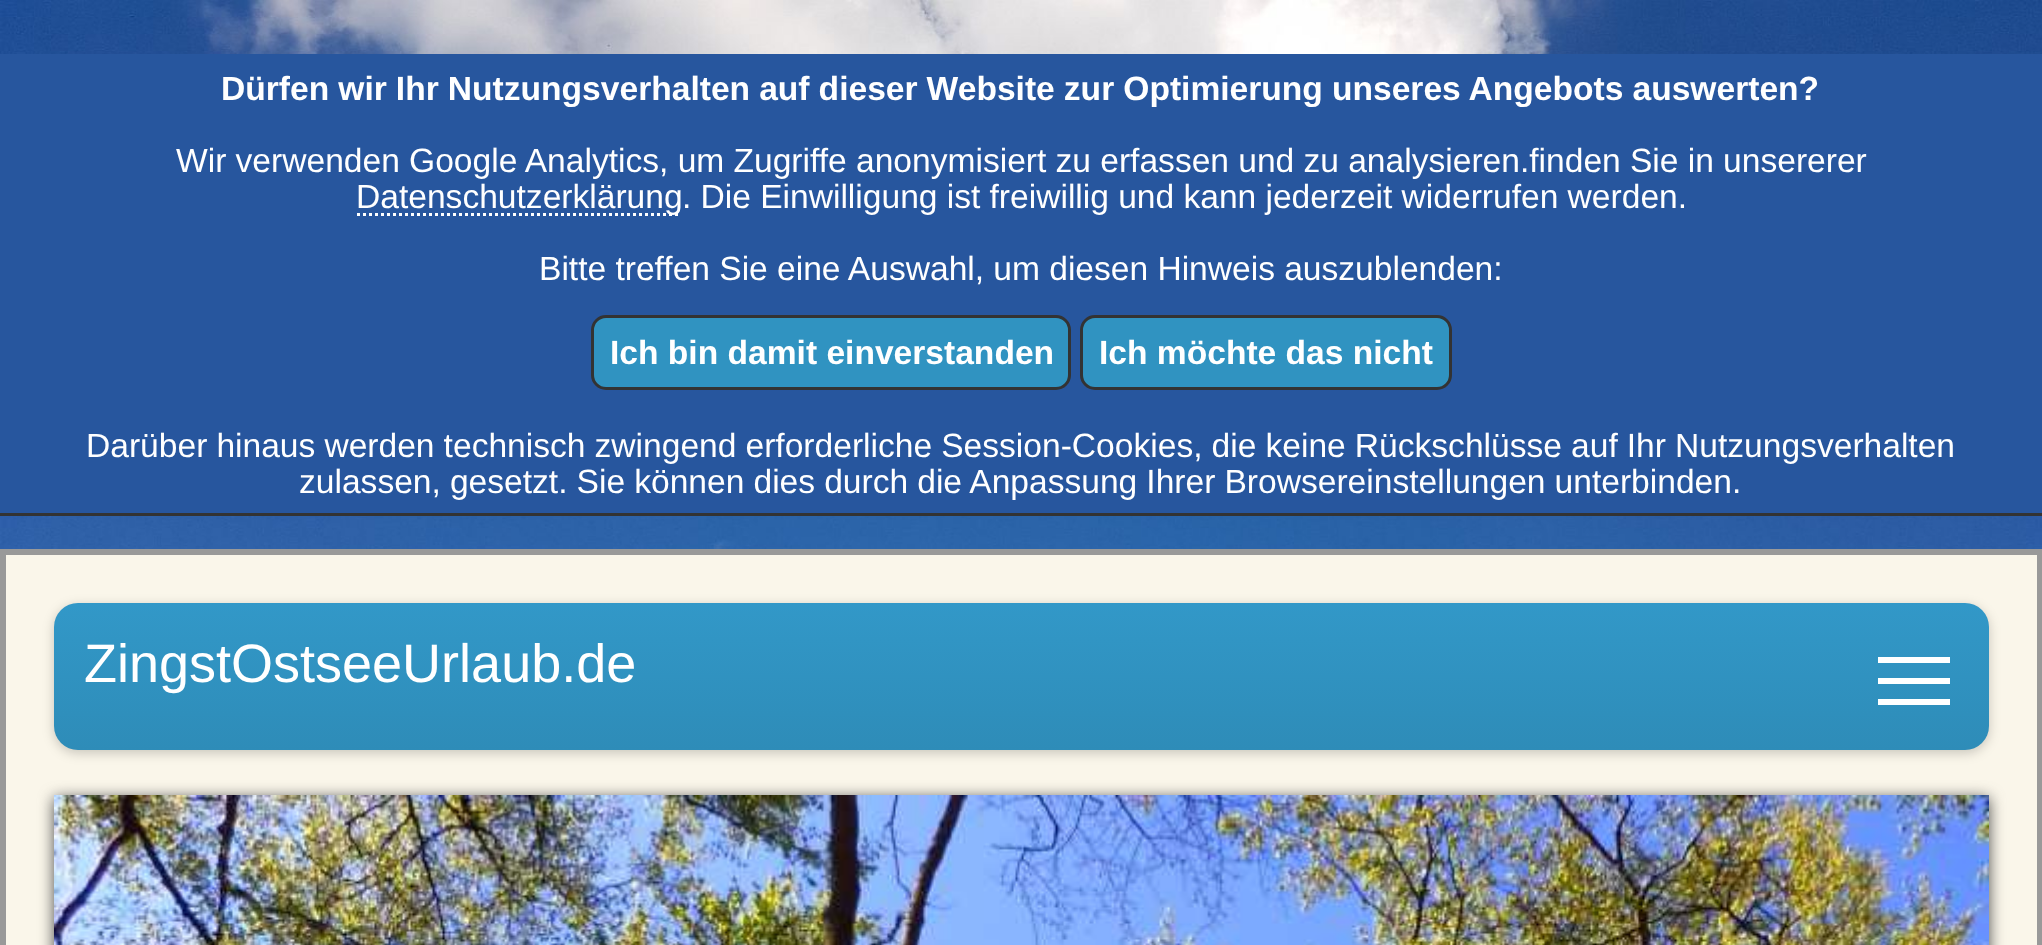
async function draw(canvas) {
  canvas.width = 2042
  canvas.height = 945
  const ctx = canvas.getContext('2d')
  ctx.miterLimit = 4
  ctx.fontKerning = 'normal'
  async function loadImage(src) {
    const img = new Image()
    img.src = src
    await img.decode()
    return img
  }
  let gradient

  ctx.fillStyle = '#fff'
  ctx.fillRect(0, 0, 2042, 945)
  ctx.drawImage(await loadImage('image0.png'), 0, 0, 2042, 549)
  ctx.fillStyle = '#27569e'
  ctx.fillRect(0, 54, 2042, 459)
  ctx.fillStyle = '#333'
  ctx.fillRect(0, 513, 2042, 3)
  ctx.wordSpacing = '-0.25px'
  ctx.font = 'bold 33.6px Liberation Sans'
  ctx.fillStyle = '#fff'
  ctx.fillText('Dürfen wir Ihr Nutzungsverhalten auf dieser Website zur Optimierung unseres Angebots auswerten?', 221, 100)
  ctx.wordSpacing = '-0.1px'
  ctx.font = '33.6px Liberation Sans'
  ctx.fillText('Wir verwenden Google Analytics, um Zugriffe anonymisiert zu erfassen und zu analysieren.finden Sie in unsererer', 176, 172)
  ctx.beginPath()
  ctx.moveTo(357, 214.5)
  ctx.lineTo(681, 214.5)
  ctx.strokeStyle = '#fff'
  ctx.lineWidth = 3
  ctx.setLineDash([3, 3])
  ctx.stroke()
  ctx.wordSpacing = '0px'
  ctx.fillText('Datenschutzerklärung', 356, 208)
  ctx.wordSpacing = '-0.1px'
  ctx.fillText('. Die Einwilligung ist freiwillig und kann jederzeit widerrufen werden.', 682, 208)
  ctx.fillText('Bitte treffen Sie eine Auswahl, um diesen Hinweis auszublenden:', 539, 280)
  ctx.fillStyle = '#3093c1'
  ctx.beginPath()
  ctx.roundRect(592.5, 316.5, 477, 72, 13.5)
  ctx.fill()
  ctx.strokeStyle = '#333'
  ctx.setLineDash([])
  ctx.stroke()
  ctx.wordSpacing = '0px'
  ctx.font = 'bold 33.6px Liberation Sans'
  ctx.fillStyle = '#fff'
  ctx.fillText('Ich bin damit einverstanden', 610, 364)
  ctx.fillStyle = '#3093c1'
  ctx.beginPath()
  ctx.roundRect(1081.5, 316.5, 369, 72, 13.5)
  ctx.fill()
  ctx.stroke()
  ctx.fillStyle = '#fff'
  ctx.fillText('Ich möchte das nicht', 1099, 364)
  ctx.wordSpacing = '-0.25px'
  ctx.font = '33.6px Liberation Sans'
  ctx.fillText('Darüber hinaus werden technisch zwingend erforderliche Session-Cookies, die keine Rückschlüsse auf Ihr Nutzungsverhalten', 86, 457)
  ctx.fillText('zulassen, gesetzt. Sie können dies durch die Anpassung Ihrer Browsereinstellungen unterbinden.', 299, 493)
  ctx.fillStyle = '#faf6ea'
  ctx.beginPath()
  ctx.rect(3, 552, 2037, 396)
  ctx.fill()
  ctx.strokeStyle = '#999'
  ctx.lineWidth = 6
  ctx.stroke()
  ctx.fillStyle = '#00000033'
  ctx.filter = 'blur(6px)'
  ctx.beginPath()
  ctx.roundRect(54, 606, 1935, 147, 24)
  ctx.fill()
  ctx.filter = 'none'
  gradient = ctx.createLinearGradient(1022, 603, 1022, 750)
  gradient.addColorStop(0, '#3298c8')
  gradient.addColorStop(1, '#2e8cb8')
  ctx.fillStyle = gradient
  ctx.beginPath()
  ctx.roundRect(54, 603, 1935, 147, 24)
  ctx.fill()
  ctx.wordSpacing = '0px'
  ctx.font = '54px Liberation Sans'
  ctx.fillStyle = '#fff'
  ctx.fillText('ZingstOstseeUrlaub.de', 84, 682)
  ctx.fillRect(1878, 678, 72, 6)
  ctx.fillRect(1878, 657, 72, 6)
  ctx.fillRect(1878, 699, 72, 6)
  ctx.fillStyle = '#4a4a4a'
  ctx.filter = 'blur(7.5px)'
  ctx.beginPath()
  ctx.rect(54, 798, 1935, 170)
  ctx.fill()
  ctx.filter = 'none'
  ctx.drawImage(await loadImage('image1.png'), 54, 795, 1935, 150)
}

draw(document.querySelector('canvas'))
